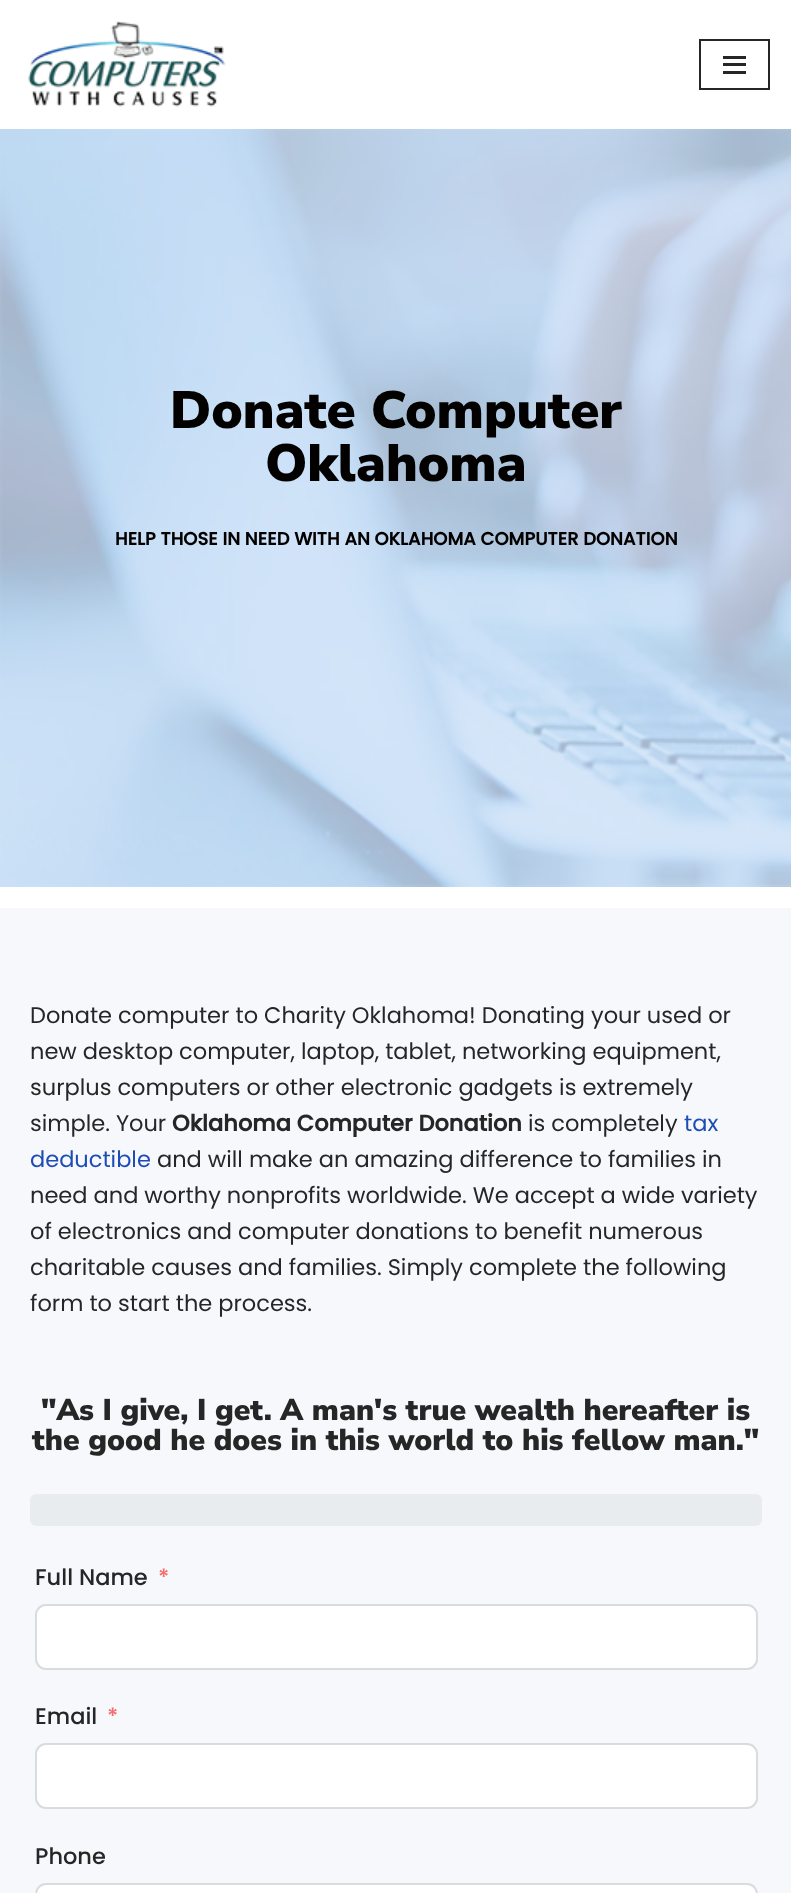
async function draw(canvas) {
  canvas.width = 791
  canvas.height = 1893
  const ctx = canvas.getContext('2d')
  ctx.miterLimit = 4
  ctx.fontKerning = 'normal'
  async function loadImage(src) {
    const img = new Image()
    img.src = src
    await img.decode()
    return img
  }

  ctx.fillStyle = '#fff'
  ctx.fillRect(0, 0, 791, 1893)
  ctx.drawImage(await loadImage('image0.png'), 28, 21, 198, 86)
  ctx.strokeStyle = '#262626'
  ctx.lineWidth = 2
  ctx.strokeRect(700, 40, 69, 49)
  ctx.fillStyle = '#262626'
  ctx.fillRect(723, 56, 23, 3)
  ctx.fillRect(723, 63, 23, 3)
  ctx.fillRect(723, 71, 23, 3)
  ctx.drawImage(await loadImage('image1.png'), 0, 129, 791, 758)
  ctx.font = '900 52.5px Nunito Sans'
  ctx.fillStyle = '#030000'
  ctx.fillText('Donate Computer', 170, 428)
  ctx.fillText('Oklahoma', 265, 481)
  ctx.font = 'bold 18px Poppins'
  ctx.fillText('HELP THOSE IN NEED WITH AN OKLAHOMA COMPUTER DONATION', 115, 545)
  ctx.fillStyle = '#f7f8fc'
  ctx.fillRect(0, 908, 791, 985)
  ctx.font = '22.5px Poppins'
  ctx.fillStyle = '#262626'
  ctx.fillText('Donate computer to Charity Oklahoma! Donating your used or', 30, 1023)
  ctx.fillText('new desktop computer, laptop, tablet, networking equipment,', 30, 1059)
  ctx.fillText('surplus computers or other electronic gadgets is extremely', 30, 1095)
  ctx.fillText('simple. Your', 30, 1131)
  ctx.font = 'bold 22.5px Poppins'
  ctx.fillText('Oklahoma Computer Donation', 172, 1131)
  ctx.font = '22.5px Poppins'
  ctx.fillText('is completely', 528, 1131)
  ctx.fillStyle = '#1d4cb6'
  ctx.fillText('tax', 684, 1131)
  ctx.fillText('deductible', 30, 1167)
  ctx.fillStyle = '#262626'
  ctx.fillText('and will make an amazing difference to families in', 157, 1167)
  ctx.fillText('need and worthy nonprofits worldwide. We accept a wide variety', 30, 1203)
  ctx.fillText('of electronics and computer donations to benefit numerous', 30, 1239)
  ctx.fillText('charitable causes and families. Simply complete the following', 30, 1275)
  ctx.fillText('form to start the process.', 30, 1311)
  ctx.font = '900 30px Nunito Sans'
  ctx.fillText('"As I give, I get. A man\'s true wealth hereafter is', 41, 1420)
  ctx.fillText('the good he does in this world to his fellow man."', 32, 1450)
  ctx.fillStyle = '#e9ecef'
  ctx.beginPath()
  ctx.roundRect(30, 1494, 732, 32, 6)
  ctx.fill()
  ctx.font = '500 22.5px Poppins'
  ctx.fillStyle = '#262626'
  ctx.fillText('Full Name', 35, 1585)
  ctx.fillStyle = '#f56c6c'
  ctx.fillText('*', 158, 1585)
  ctx.fillStyle = '#fff'
  ctx.beginPath()
  ctx.roundRect(36, 1605, 721, 64, 10)
  ctx.fill()
  ctx.strokeStyle = '#dadbdd'
  ctx.stroke()
  ctx.fillStyle = '#262626'
  ctx.fillText('Email', 35, 1724)
  ctx.fillStyle = '#f56c6c'
  ctx.fillText('*', 107, 1724)
  ctx.fillStyle = '#fff'
  ctx.beginPath()
  ctx.roundRect(36, 1744, 721, 64, 10)
  ctx.fill()
  ctx.stroke()
  ctx.fillStyle = '#262626'
  ctx.fillText('Phone', 35, 1864)
  ctx.fillStyle = '#fff'
  ctx.beginPath()
  ctx.roundRect(36, 1884, 720, 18, 9)
  ctx.fill()
  ctx.beginPath()
  ctx.roundRect(36, 1884, 721, 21, 10)
  ctx.stroke()
}

draw(document.querySelector('canvas'))
